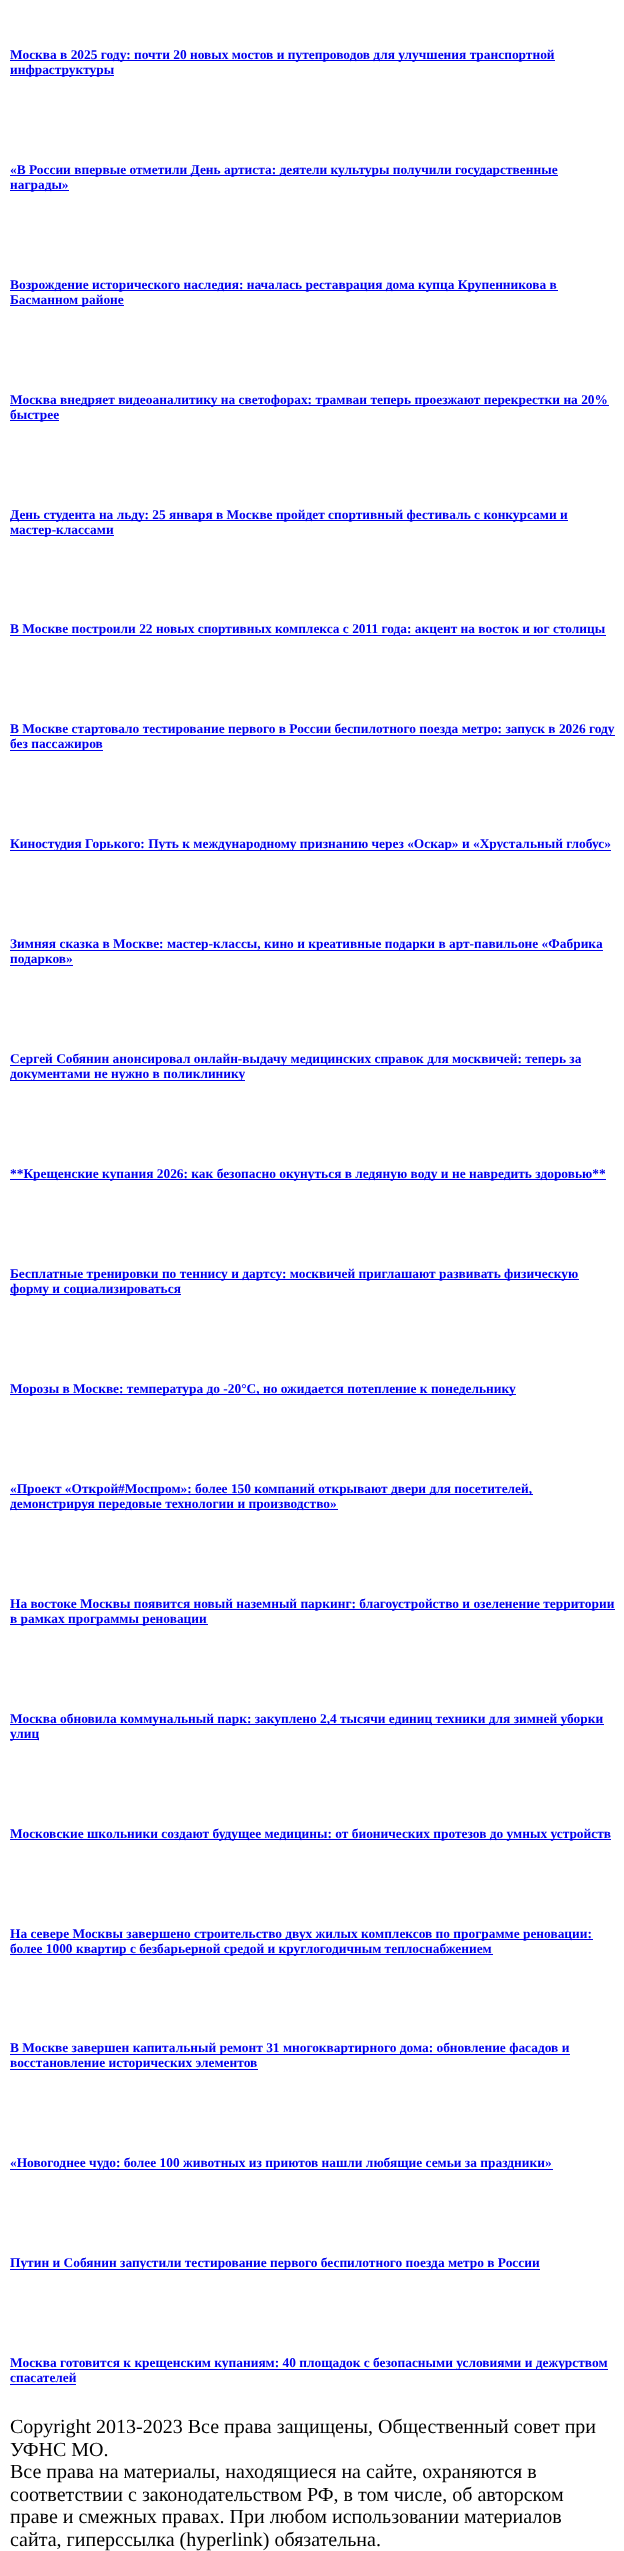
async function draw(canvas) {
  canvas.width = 624
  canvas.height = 2551
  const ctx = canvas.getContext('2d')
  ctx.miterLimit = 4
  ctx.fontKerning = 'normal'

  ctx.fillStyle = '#fff'
  ctx.fillRect(0, 0, 624, 2551)
  ctx.fillStyle = '#00e'
  ctx.fillRect(10, 60, 545, 1)
  ctx.font = 'bold 13.4px Liberation Serif'
  ctx.fillText('Москва в 2025 году: почти 20 новых мостов и путепроводов для улучшения транспортной', 10, 59)
  ctx.fillRect(10, 75, 104, 1)
  ctx.fillText('инфраструктуры', 10, 74)
  ctx.fillRect(10, 175, 548, 1)
  ctx.fillText('«В России впервые отметили День артиста: деятели культуры получили государственные', 10, 174)
  ctx.fillRect(10, 190, 59, 1)
  ctx.fillText('награды»', 10, 189)
  ctx.fillRect(10, 290, 548, 1)
  ctx.fillText('Возрождение исторического наследия: началась реставрация дома купца Крупенникова в', 10, 289)
  ctx.fillRect(10, 305, 114, 1)
  ctx.fillText('Басманном районе', 10, 304)
  ctx.fillRect(10, 405, 599, 1)
  ctx.fillText('Москва внедряет видеоаналитику на светофорах: трамваи теперь проезжают перекрестки на 20%', 10, 404)
  ctx.fillRect(10, 420, 49, 1)
  ctx.fillText('быстрее', 10, 419)
  ctx.fillRect(10, 520, 558, 1)
  ctx.fillText('День студента на льду: 25 января в Москве пройдет спортивный фестиваль с конкурсами и', 10, 519)
  ctx.fillRect(10, 535, 104, 1)
  ctx.fillText('мастер-классами', 10, 534)
  ctx.fillRect(10, 635, 596, 1)
  ctx.fillText('В Москве построили 22 новых спортивных комплекса с 2011 года: акцент на восток и юг столицы', 10, 633)
  ctx.fillRect(10, 735, 605, 1)
  ctx.fillText('В Москве стартовало тестирование первого в России беспилотного поезда метро: запуск в 2026 году', 10, 733)
  ctx.fillRect(10, 750, 93, 1)
  ctx.fillText('без пассажиров', 10, 748)
  ctx.fillRect(10, 850, 601, 1)
  ctx.fillText('Киностудия Горького: Путь к международному признанию через «Оскар» и «Хрустальный глобус»', 10, 848)
  ctx.fillRect(10, 950, 593, 1)
  ctx.fillText('Зимняя сказка в Москве: мастер-классы, кино и креативные подарки в арт-павильоне «Фабрика', 10, 948)
  ctx.fillRect(10, 965, 63, 1)
  ctx.fillText('подарков»', 10, 963)
  ctx.fillRect(10, 1065, 571, 1)
  ctx.fillText('Сергей Собянин анонсировал онлайн-выдачу медицинских справок для москвичей: теперь за', 10, 1063)
  ctx.fillRect(10, 1080, 235, 1)
  ctx.fillText('документами не нужно в поликлинику', 10, 1078)
  ctx.fillRect(10, 1179, 596, 1)
  ctx.fillText('**Крещенские купания 2026: как безопасно окунуться в ледяную воду и не навредить здоровью**', 10, 1178)
  ctx.fillRect(10, 1279, 569, 1)
  ctx.fillText('Бесплатные тренировки по теннису и дартсу: москвичей приглашают развивать физическую', 10, 1278)
  ctx.fillRect(10, 1294, 171, 1)
  ctx.fillText('форму и социализироваться', 10, 1293)
  ctx.fillRect(10, 1394, 506, 1)
  ctx.fillText('Морозы в Москве: температура до -20°C, но ожидается потепление к понедельнику', 10, 1393)
  ctx.fillRect(10, 1494, 523, 1)
  ctx.fillText('«Проект «Открой#Моспром»: более 150 компаний открывают двери для посетителей,', 10, 1493)
  ctx.fillRect(10, 1509, 328, 1)
  ctx.fillText('демонстрируя передовые технологии и производство»', 10, 1508)
  ctx.fillRect(10, 1609, 605, 1)
  ctx.fillText('На востоке Москвы появится новый наземный паркинг: благоустройство и озеленение территории', 10, 1608)
  ctx.fillRect(10, 1624, 198, 1)
  ctx.fillText('в рамках программы реновации', 10, 1623)
  ctx.fillRect(10, 1724, 594, 1)
  ctx.fillText('Москва обновила коммунальный парк: закуплено 2,4 тысячи единиц техники для зимней уборки', 10, 1723)
  ctx.fillRect(10, 1739, 29, 1)
  ctx.fillText('улиц', 10, 1738)
  ctx.fillRect(10, 1839, 601, 1)
  ctx.fillText('Московские школьники создают будущее медицины: от бионических протезов до умных устройств', 10, 1838)
  ctx.fillRect(10, 1939, 583, 1)
  ctx.fillText('На севере Москвы завершено строительство двух жилых комплексов по программе реновации:', 10, 1938)
  ctx.fillRect(10, 1954, 483, 1)
  ctx.fillText('более 1000 квартир с безбарьерной средой и круглогодичным теплоснабжением', 10, 1953)
  ctx.fillRect(10, 2054, 560, 1)
  ctx.fillText('В Москве завершен капитальный ремонт 31 многоквартирного дома: обновление фасадов и', 10, 2052)
  ctx.fillRect(10, 2069, 248, 1)
  ctx.fillText('восстановление исторических элементов', 10, 2067)
  ctx.fillRect(10, 2169, 543, 1)
  ctx.fillText('«Новогоднее чудо: более 100 животных из приютов нашли любящие семьи за праздники»', 10, 2167)
  ctx.fillRect(10, 2269, 530, 1)
  ctx.fillText('Путин и Собянин запустили тестирование первого беспилотного поезда метро в России', 10, 2267)
  ctx.fillRect(10, 2369, 598, 1)
  ctx.fillText('Москва готовится к крещенским купаниям: 40 площадок с безопасными условиями и дежурством', 10, 2367)
  ctx.fillText('спасателей', 10, 2382)
  ctx.fillRect(10, 2384, 66, 1)
  ctx.font = '20px Liberation Serif'
  ctx.fillStyle = '#000'
  ctx.fillText('Copyright 2013-2023 Все права защищены, Общественный совет при', 10, 2433)
  ctx.fillText('УФНС МО.', 10, 2456)
  ctx.fillText('Все права на материалы, находящиеся на сайте, охраняются в', 10, 2478)
  ctx.fillText('соответствии с законодательством РФ, в том числе, об авторском', 10, 2501)
  ctx.fillText('праве и смежных правах. При любом использовании материалов', 10, 2523)
  ctx.fillText('сайта, гиперссылка (hyperlink) обязательна.', 10, 2546)
}

draw(document.querySelector('canvas'))
